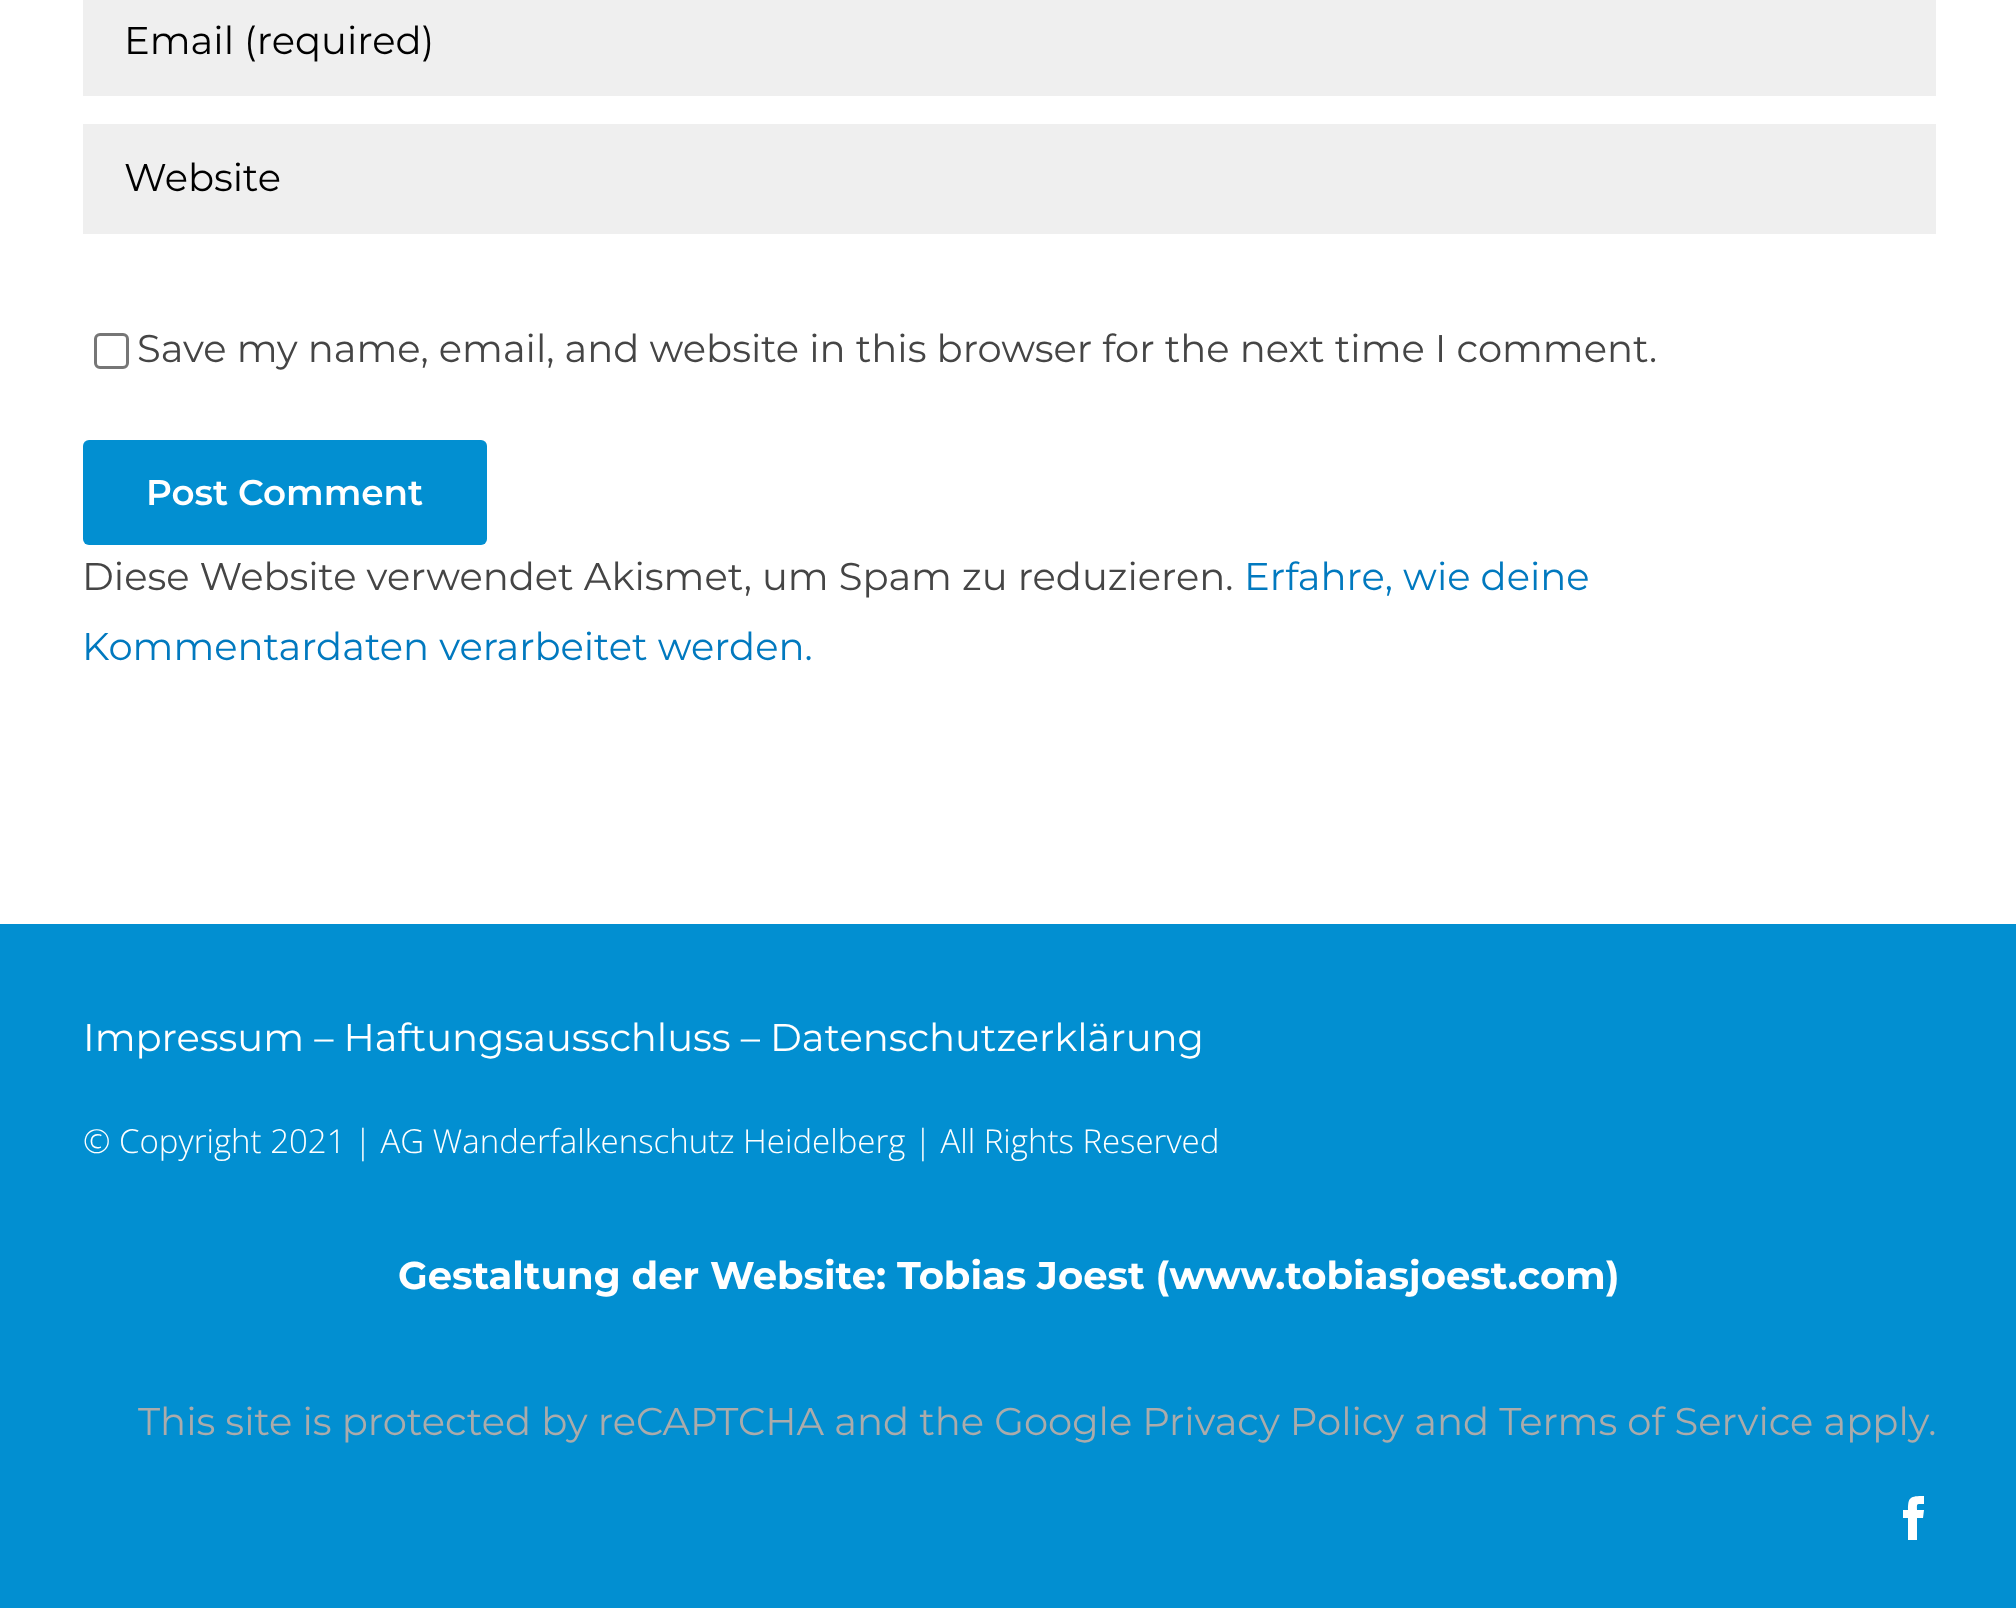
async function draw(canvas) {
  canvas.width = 2016
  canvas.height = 1608
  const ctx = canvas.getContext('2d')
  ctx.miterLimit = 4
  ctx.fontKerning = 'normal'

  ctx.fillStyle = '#fff'
  ctx.fillRect(0, 0, 2016, 1608)
  ctx.fillStyle = '#efefef'
  ctx.fillRect(83, 0, 1853, 96)
  ctx.font = '38.5px Montserrat'
  ctx.fillStyle = '#000'
  ctx.fillText('Email (required)', 124, 54)
  ctx.fillStyle = '#efefef'
  ctx.fillRect(83, 124, 1853, 110)
  ctx.fillStyle = '#000'
  ctx.fillText('Website', 124, 191)
  ctx.beginPath()
  ctx.roundRect(95.5, 334.5, 32, 33, 4.5)
  ctx.strokeStyle = '#767676'
  ctx.lineWidth = 3
  ctx.stroke()
  ctx.fillStyle = '#454545'
  ctx.fillText('Save my name, email, and website in this browser for the next time I comment.', 137, 362)
  ctx.fillStyle = '#028fd1'
  ctx.beginPath()
  ctx.roundRect(83, 440, 404, 105, 6)
  ctx.fill()
  ctx.font = '600 35.75px Montserrat'
  ctx.fillStyle = '#fff'
  ctx.fillText('Post Comment', 146, 505)
  ctx.font = '38.5px Montserrat'
  ctx.fillStyle = '#454545'
  ctx.fillText('Diese Website verwendet Akismet, um Spam zu reduzieren.', 82, 590)
  ctx.fillStyle = '#0179bf'
  ctx.fillText('Erfahre, wie deine', 1244, 590)
  ctx.fillText('Kommentardaten verarbeitet werden.', 82, 660)
  ctx.fillStyle = '#028fd1'
  ctx.fillRect(0, 924, 2016, 684)
  ctx.fillStyle = '#fff'
  ctx.fillText('Impressum – Haftungsausschluss – Datenschutzerklärung', 83, 1051)
  ctx.font = '300 33px Open Sans'
  ctx.fillText('© Copyright 2021 | AG Wanderfalkenschutz Heidelberg | All Rights Reserved', 83, 1153)
  ctx.font = 'bold 38.5px Montserrat'
  ctx.fillText('Gestaltung der Website: Tobias Joest (www.tobiasjoest.com)', 398, 1289)
  ctx.font = '38.5px Montserrat'
  ctx.fillStyle = '#ababab'
  ctx.fillText('This site is protected by reCAPTCHA and the Google Privacy Policy and Terms of Service apply.', 138, 1435)
  ctx.fillStyle = '#fff'
  ctx.beginPath()
  ctx.moveTo(1917, 1540)
  ctx.lineTo(1908, 1540)
  ctx.lineTo(1908, 1518)
  ctx.lineTo(1903, 1518)
  ctx.lineTo(1903, 1510)
  ctx.lineTo(1908, 1510)
  ctx.bezierCurveTo(1908, 1497, 1910, 1496, 1924, 1496)
  ctx.lineTo(1924, 1504)
  ctx.bezierCurveTo(1916, 1504, 1917, 1503, 1917, 1510)
  ctx.lineTo(1924, 1510)
  ctx.lineTo(1923, 1518)
  ctx.lineTo(1917, 1518)
  ctx.closePath()
  ctx.fill()
}

draw(document.querySelector('canvas'))
